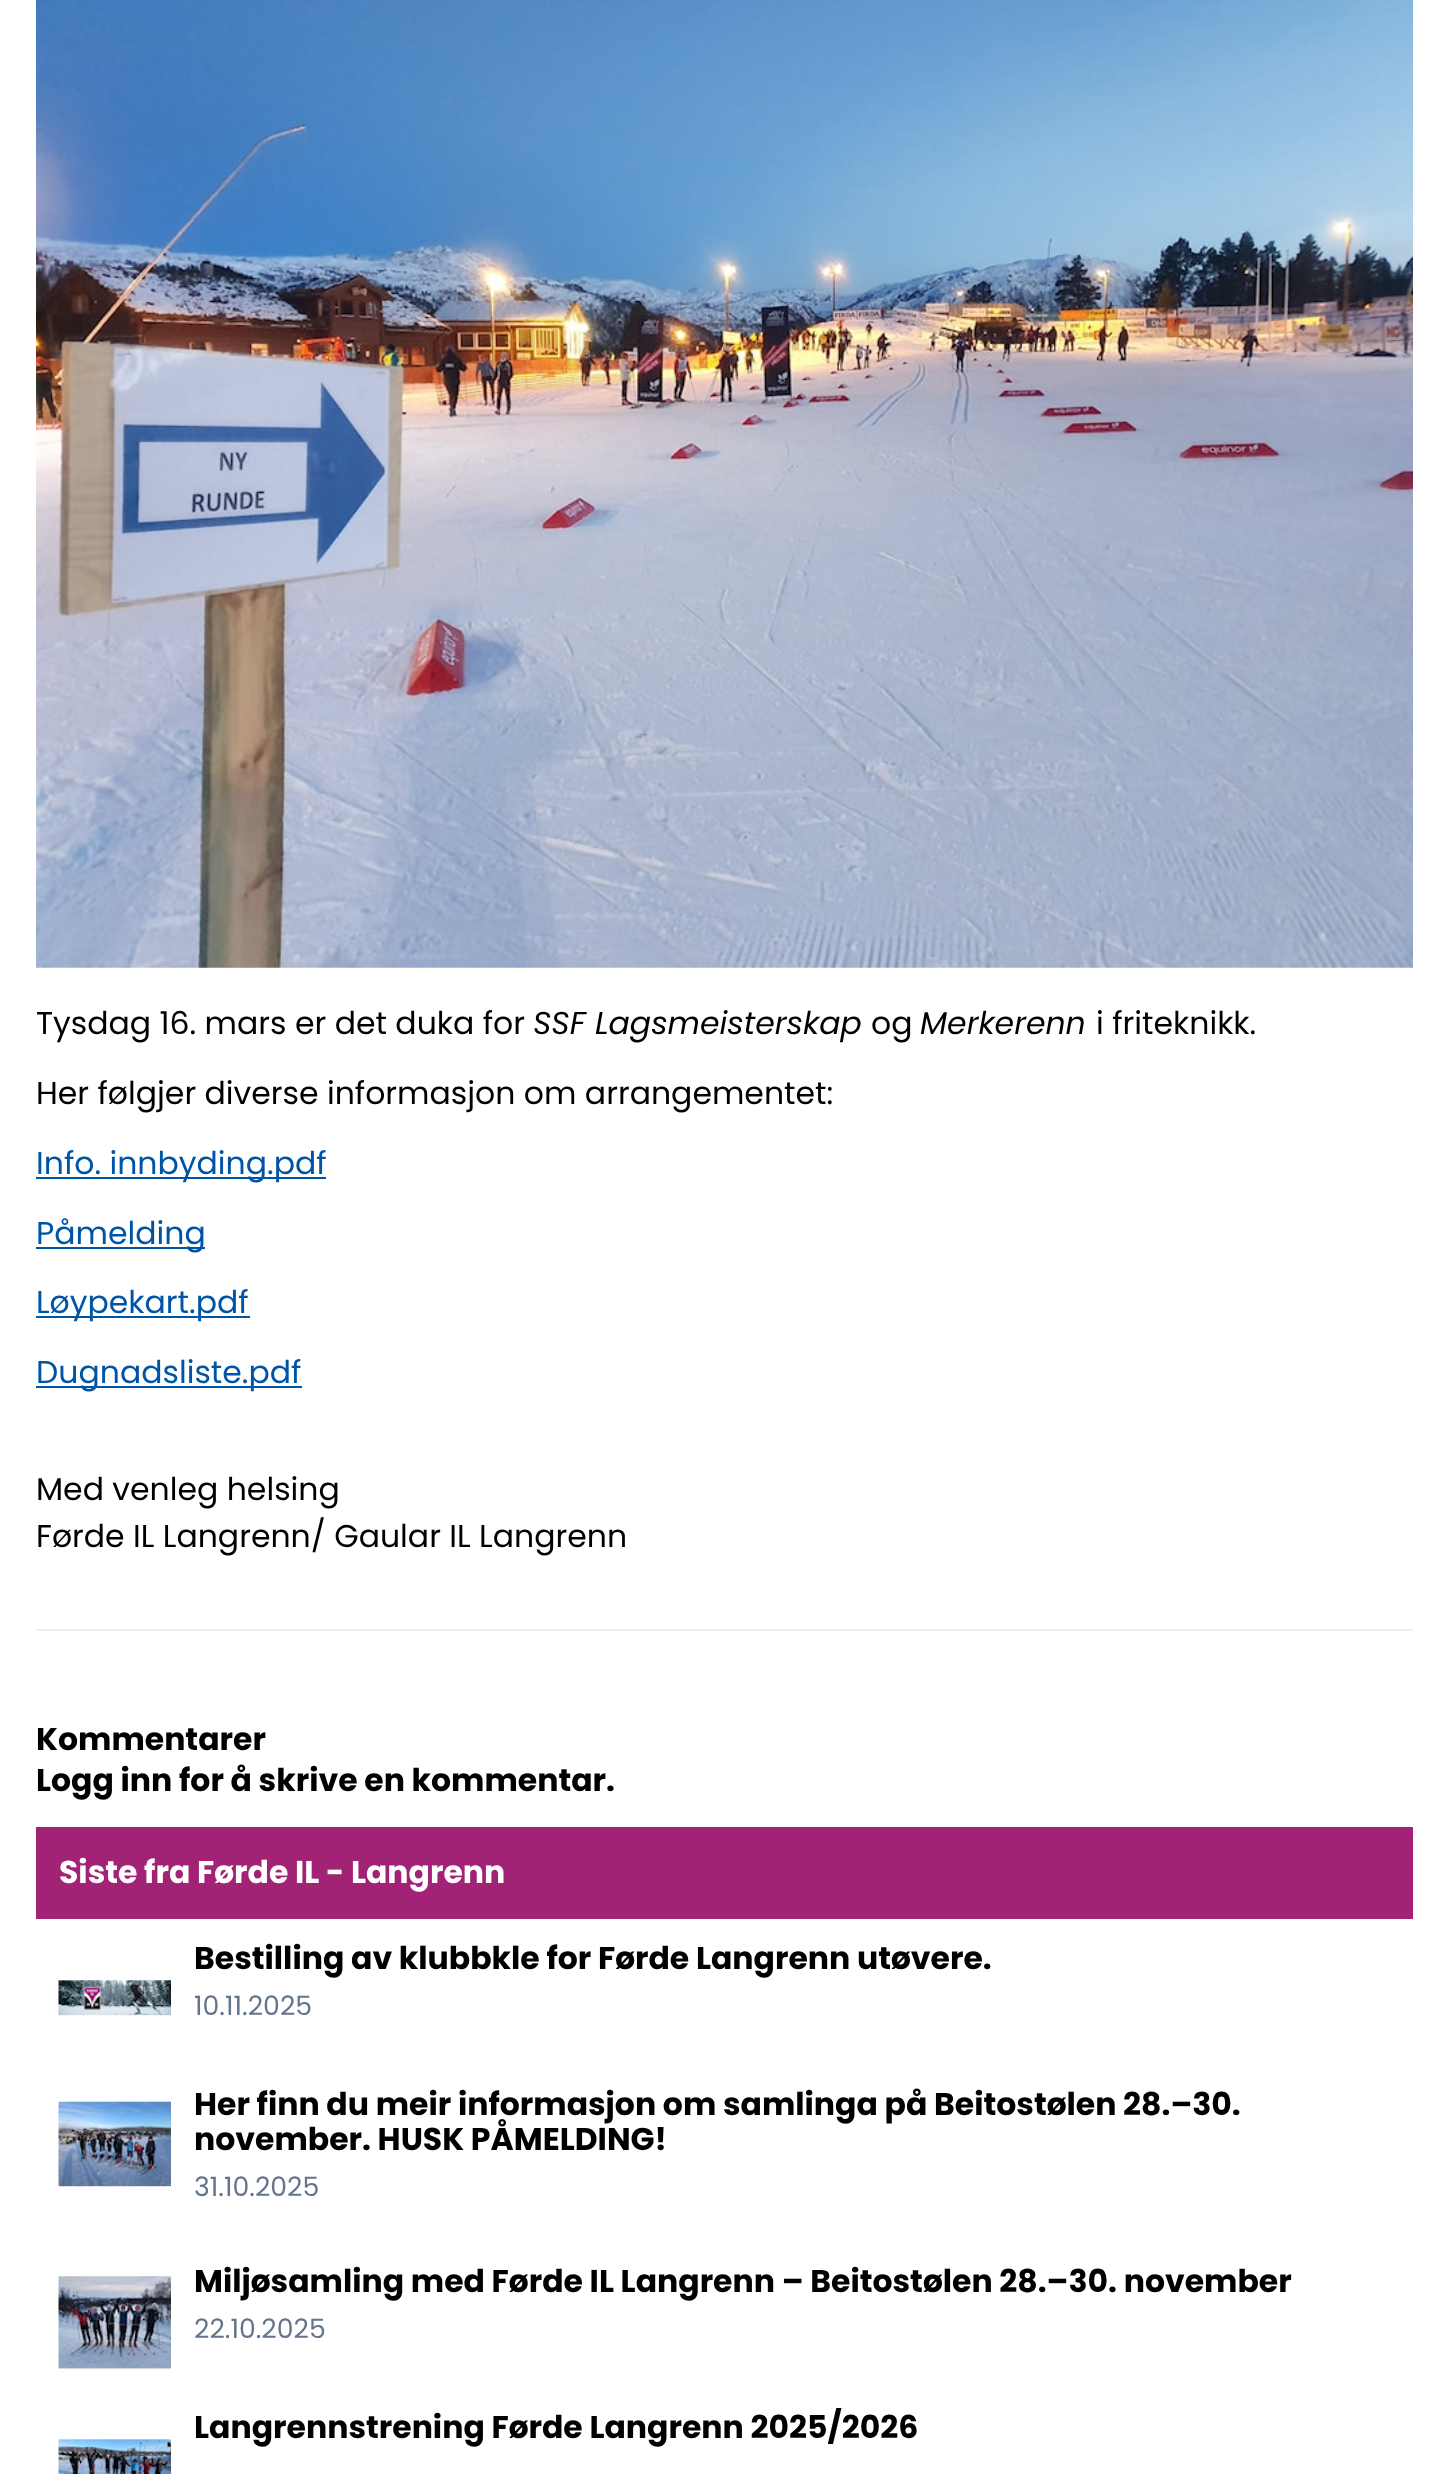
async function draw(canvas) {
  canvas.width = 1447
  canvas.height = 2474
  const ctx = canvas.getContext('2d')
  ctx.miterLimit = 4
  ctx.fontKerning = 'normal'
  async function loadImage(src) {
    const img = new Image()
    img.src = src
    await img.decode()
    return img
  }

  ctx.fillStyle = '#fff'
  ctx.fillRect(0, 0, 1447, 2474)
  ctx.drawImage(await loadImage('image0.png'), 36, 0, 1377, 968)
  ctx.font = '31.5px Poppins'
  ctx.fillStyle = '#000'
  ctx.fillText('Tysdag 16. mars er det duka for', 36, 1034)
  ctx.font = 'italic 31.5px Poppins'
  ctx.fillText('SSF Lagsmeisterskap', 533, 1034)
  ctx.font = '31.5px Poppins'
  ctx.fillText('og', 871, 1034)
  ctx.font = 'italic 31.5px Poppins'
  ctx.fillText('Merkerenn', 920, 1034)
  ctx.font = '31.5px Poppins'
  ctx.fillText('i friteknikk.', 1096, 1034)
  ctx.fillText('Her følgjer diverse informasjon om arrangementet:', 36, 1104)
  ctx.fillStyle = '#0054a6'
  ctx.fillRect(36, 1177, 290, 2)
  ctx.fillText('Info. innbyding.pdf', 36, 1174)
  ctx.fillRect(36, 1247, 169, 2)
  ctx.fillText('Påmelding', 36, 1244)
  ctx.fillRect(36, 1316, 214, 2)
  ctx.fillText('Løypekart.pdf', 36, 1313)
  ctx.fillRect(36, 1386, 266, 2)
  ctx.fillText('Dugnadsliste.pdf', 36, 1383)
  ctx.fillStyle = '#000'
  ctx.fillText('Med venleg helsing', 36, 1500)
  ctx.fillText('Førde IL Langrenn/ Gaular IL Langrenn', 36, 1547)
  ctx.fillStyle = '#eee'
  ctx.fillRect(36, 1629, 1377, 2)
  ctx.font = 'bold 31.5px Poppins'
  ctx.fillStyle = '#000'
  ctx.fillText('Kommentarer', 36, 1750)
  ctx.fillText('Logg inn for å skrive en kommentar.', 36, 1791)
  ctx.fillStyle = '#a22375'
  ctx.fillRect(36, 1827, 1377, 92)
  ctx.fillStyle = '#fff'
  ctx.fillText('Siste fra Førde IL - Langrenn', 59, 1883)
  ctx.drawImage(await loadImage('image1.png'), 58, 1980, 113, 36)
  ctx.fillStyle = '#000'
  ctx.fillText('Bestilling av klubbkle for Førde Langrenn utøvere.', 194, 1969)
  ctx.font = '26.75px Poppins'
  ctx.fillStyle = '#64748b'
  ctx.fillText('10.11.2025', 194, 2015)
  ctx.drawImage(await loadImage('image2.png'), 58, 2101, 113, 86)
  ctx.font = 'bold 31.5px Poppins'
  ctx.fillStyle = '#000'
  ctx.fillText('Her finn du meir informasjon om samlinga på Beitostølen 28.–30.', 194, 2115)
  ctx.fillText('november. HUSK PÅMELDING!', 194, 2150)
  ctx.font = '26.75px Poppins'
  ctx.fillStyle = '#64748b'
  ctx.fillText('31.10.2025', 194, 2196)
  ctx.drawImage(await loadImage('image3.png'), 58, 2276, 113, 93)
  ctx.font = 'bold 31.5px Poppins'
  ctx.fillStyle = '#000'
  ctx.fillText('Miljøsamling med Førde IL Langrenn – Beitostølen 28.–30. november', 194, 2292)
  ctx.font = '26.75px Poppins'
  ctx.fillStyle = '#64748b'
  ctx.fillText('22.10.2025', 194, 2338)
  ctx.font = 'bold 31.5px Poppins'
  ctx.fillStyle = '#000'
  ctx.fillText('Langrennstrening Førde Langrenn 2025/2026', 194, 2438)
  ctx.drawImage(await loadImage('image4.png'), 58, 2439, 113, 35)
}

draw(document.querySelector('canvas'))
